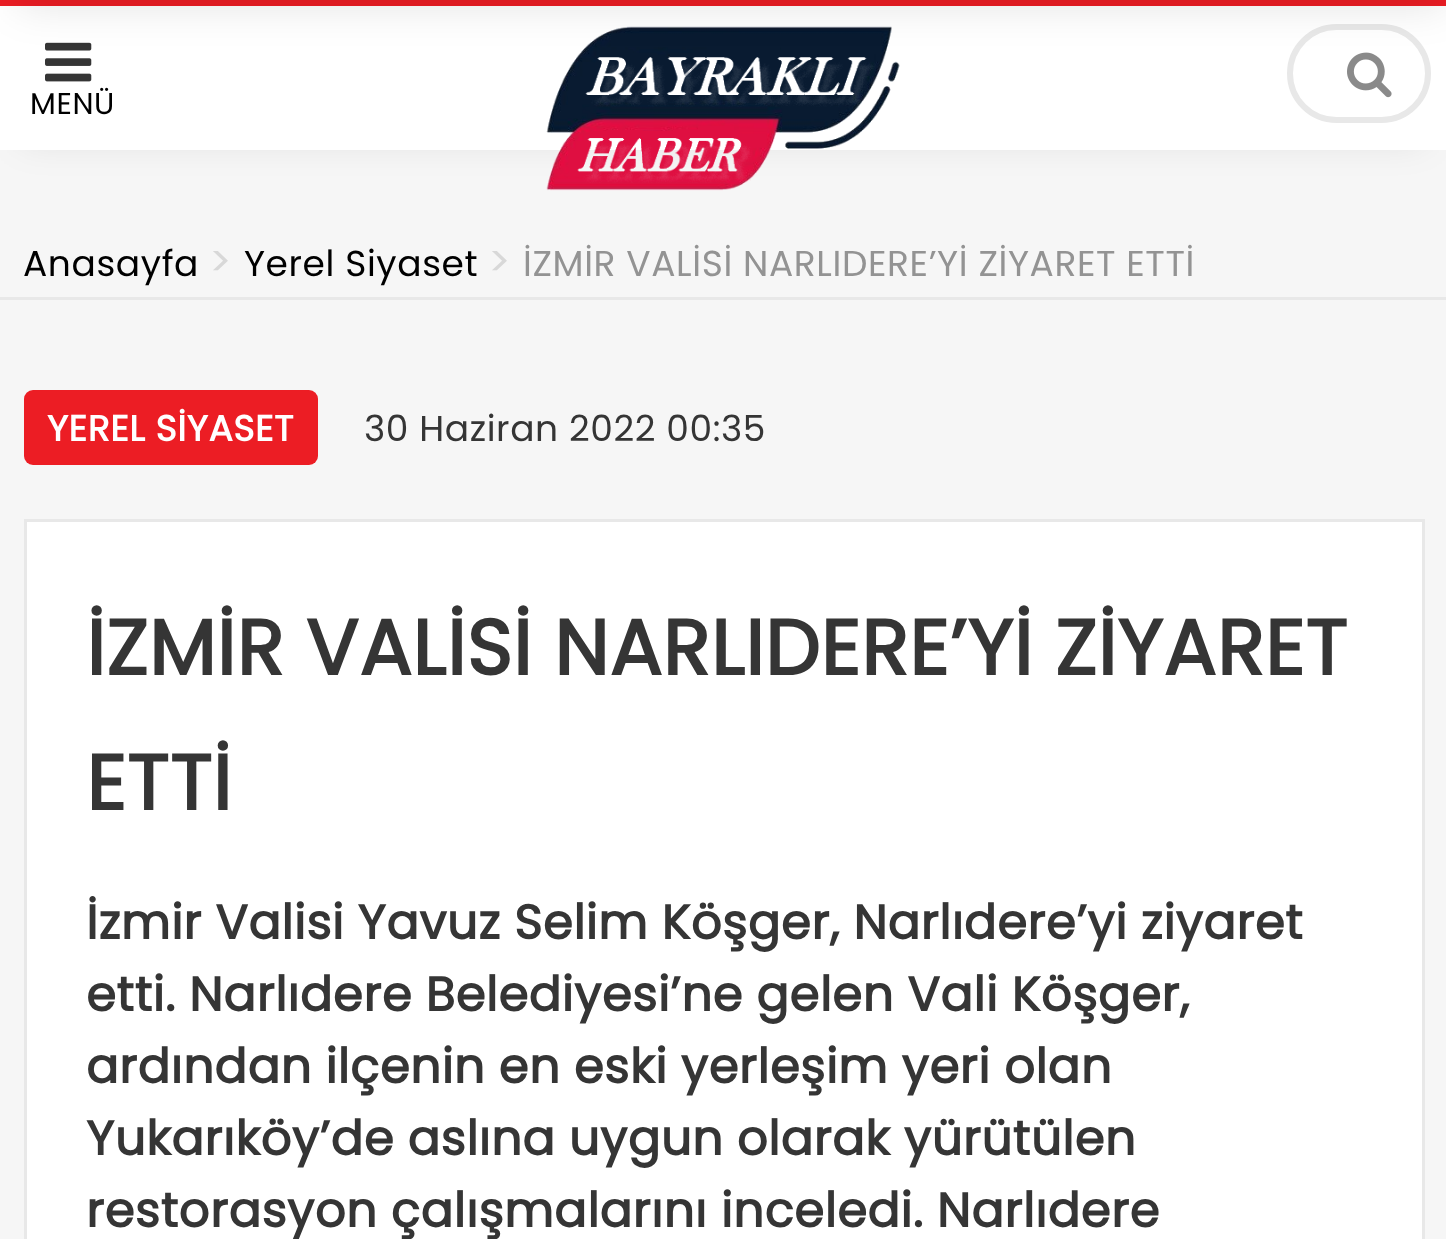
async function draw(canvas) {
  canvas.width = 1446
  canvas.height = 1239
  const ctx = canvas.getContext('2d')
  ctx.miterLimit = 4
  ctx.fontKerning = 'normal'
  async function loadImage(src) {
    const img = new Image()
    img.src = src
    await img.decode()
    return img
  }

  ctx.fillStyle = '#f6f6f6'
  ctx.fillRect(0, 0, 1446, 1239)
  ctx.fillStyle = '#ec1d24'
  ctx.fillRect(0, 0, 1446, 6)
  ctx.fillStyle = '#0000001a'
  ctx.filter = 'blur(18px)'
  ctx.beginPath()
  ctx.rect(21, 39, 1404, 102)
  ctx.fill()
  ctx.filter = 'none'
  ctx.fillStyle = '#fff'
  ctx.fillRect(0, 6, 1446, 144)
  ctx.drawImage(await loadImage('image0.png'), 45, 42, 47, 40)
  ctx.drawImage(await loadImage('image1.png'), 546, 26, 354, 165)
  ctx.beginPath()
  ctx.roundRect(1290, 27, 138, 93, 46.5)
  ctx.strokeStyle = '#e8e8e8'
  ctx.lineWidth = 6
  ctx.stroke()
  ctx.drawImage(await loadImage('image2.png'), 1347, 52, 45, 46)
  ctx.fillStyle = '#0000001c'
  ctx.filter = 'blur(21px)'
  ctx.beginPath()
  ctx.rect(18, -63, 1428, 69)
  ctx.fill()
  ctx.filter = 'none'
  ctx.letterSpacing = '0.6px'
  ctx.font = '30px Poppins'
  ctx.fillStyle = '#000'
  ctx.fillText('MENÜ', 30, 114)
  ctx.fillStyle = '#e8e8e8'
  ctx.fillRect(0, 297, 1446, 3)
  ctx.font = '36px Poppins'
  ctx.fillStyle = '#000'
  ctx.fillText('Anasayfa', 23, 276)
  ctx.font = '42px Poppins'
  ctx.fillStyle = '#d8d8d8'
  ctx.fillText('>', 209, 276)
  ctx.font = '36px Poppins'
  ctx.fillStyle = '#000'
  ctx.fillText('Yerel Siyaset', 244, 276)
  ctx.font = '42px Poppins'
  ctx.fillStyle = '#d8d8d8'
  ctx.fillText('>', 488, 276)
  ctx.font = '36px Poppins'
  ctx.fillStyle = '#939393'
  ctx.fillText('İZMİR VALİSİ NARLIDERE’Yİ ZİYARET ETTİ', 523, 276)
  ctx.fillStyle = '#ec1d24'
  ctx.beginPath()
  ctx.roundRect(24, 390, 294, 75, 9)
  ctx.fill()
  ctx.font = 'bold 36px Poppins'
  ctx.fillStyle = '#fff'
  ctx.fillText('YEREL SİYASET', 47, 441)
  ctx.font = '36px Poppins'
  ctx.fillStyle = '#353535'
  ctx.fillText('30 Haziran 2022 00:35', 364, 441)
  ctx.fillStyle = '#fff'
  ctx.beginPath()
  ctx.rect(25.5, 520.5, 1398, 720)
  ctx.fill()
  ctx.lineWidth = 3
  ctx.stroke()
  ctx.font = 'bold 78px Poppins'
  ctx.fillStyle = '#353535'
  ctx.fillText('İZMİR VALİSİ NARLIDERE’Yİ ZİYARET', 86, 675)
  ctx.fillText('ETTİ', 86, 810)
  ctx.font = 'bold 48px Poppins'
  ctx.fillText('İzmir Valisi Yavuz Selim Köşger, Narlıdere’yi ziyaret', 86, 939)
  ctx.fillText('etti. Narlıdere Belediyesi’ne gelen Vali Köşger,', 86, 1011)
  ctx.fillText('ardından ilçenin en eski yerleşim yeri olan', 86, 1083)
  ctx.fillText('Yukarıköy’de aslına uygun olarak yürütülen', 86, 1155)
  ctx.fillText('restorasyon çalışmalarını inceledi. Narlıdere', 86, 1227)
}

draw(document.querySelector('canvas'))
